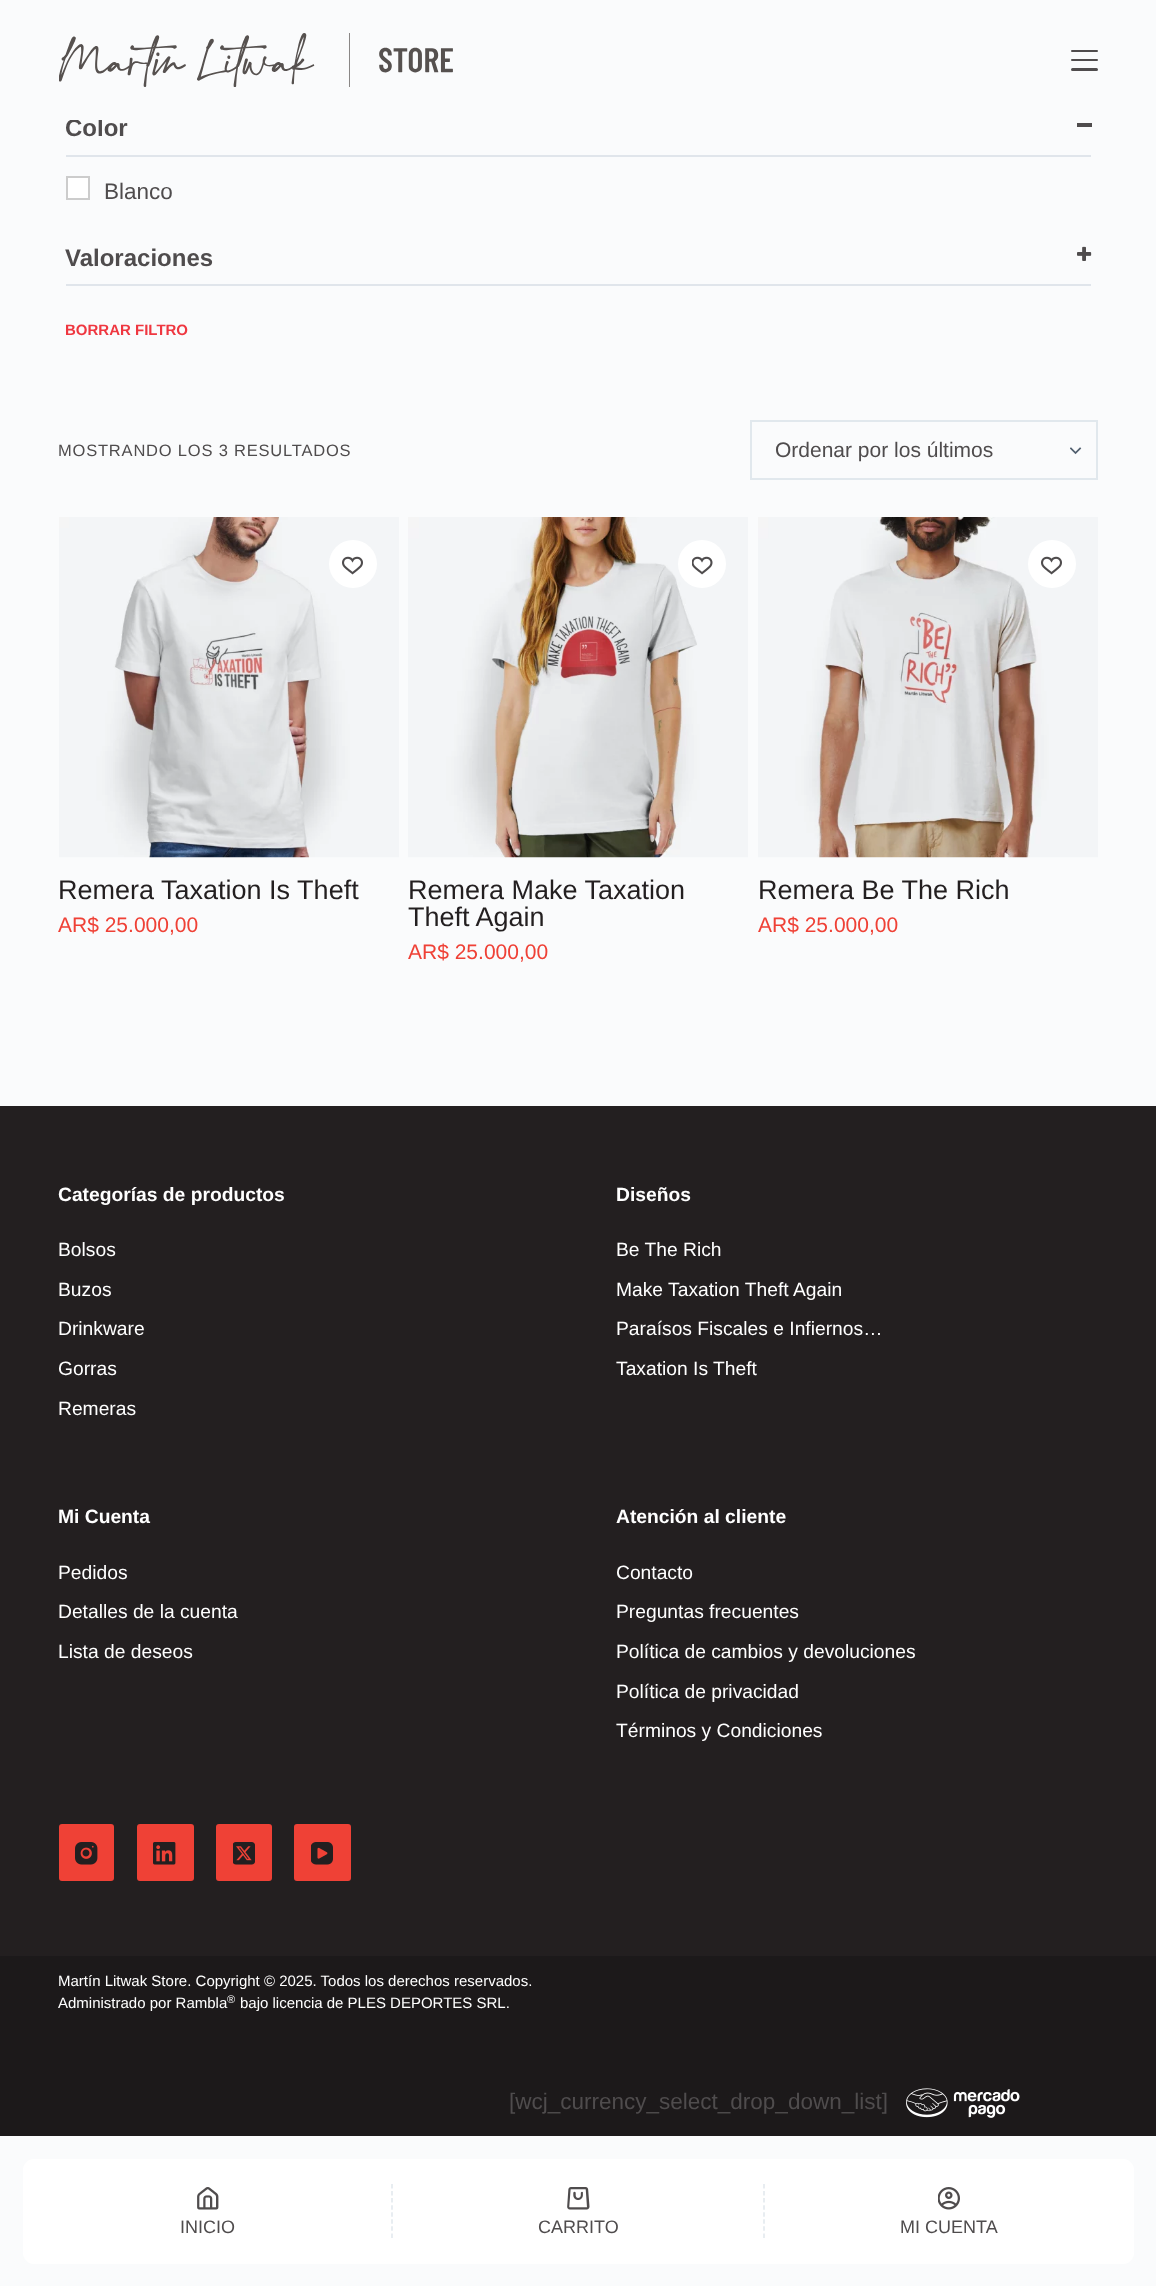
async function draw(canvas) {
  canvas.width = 1156
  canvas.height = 2286
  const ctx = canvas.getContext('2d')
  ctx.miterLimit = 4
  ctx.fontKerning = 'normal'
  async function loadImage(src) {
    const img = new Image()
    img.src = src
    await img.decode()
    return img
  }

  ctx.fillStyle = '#fafbfc'
  ctx.fillRect(0, 0, 1156, 2286)
  ctx.font = 'bold 24px Liberation Sans'
  ctx.fillStyle = '#4f4c4d'
  ctx.fillText('Color', 65, 136)
  ctx.fillStyle = '#fafbfc'
  ctx.fillRect(70, 118, 33, 2)
  ctx.drawImage(await loadImage('image0.png'), 59, 33, 394, 54)
  ctx.fillStyle = '#4f4c4d'
  ctx.beginPath()
  ctx.roundRect(1071, 50, 27, 2, 1)
  ctx.fill()
  ctx.beginPath()
  ctx.roundRect(1071, 59, 27, 2, 1)
  ctx.fill()
  ctx.beginPath()
  ctx.roundRect(1071, 68, 27, 3, 1.5)
  ctx.fill()
  ctx.fillStyle = '#e0e5eb'
  ctx.fillRect(66, 155, 1025, 2)
  ctx.fillStyle = '#4f4c4d'
  ctx.fillRect(1077, 123, 15, 4)
  ctx.fillStyle = '#fff'
  ctx.beginPath()
  ctx.rect(67, 177, 22, 22)
  ctx.fill()
  ctx.strokeStyle = '#ccc'
  ctx.lineWidth = 2
  ctx.stroke()
  ctx.font = '22.5px Liberation Sans'
  ctx.fillStyle = '#4f4c4d'
  ctx.fillText('Blanco', 104, 199)
  ctx.fillStyle = '#e0e5eb'
  ctx.fillRect(66, 284, 1025, 2)
  ctx.font = 'bold 24px Liberation Sans'
  ctx.fillStyle = '#4f4c4d'
  ctx.fillText('Valoraciones', 65, 266)
  ctx.drawImage(await loadImage('image1.png'), 1077, 246, 15, 15)
  ctx.font = 'bold 15px Liberation Sans'
  ctx.fillStyle = '#ef3740'
  ctx.fillText('BORRAR FILTRO', 65, 335)
  ctx.letterSpacing = '0.8px'
  ctx.font = '16.5px Liberation Sans'
  ctx.fillStyle = '#4f4c4d'
  ctx.fillText('MOSTRANDO LOS 3 RESULTADOS', 58, 456)
  ctx.drawImage(await loadImage('image2.png'), 1070, 447, 12, 8)
  ctx.strokeStyle = '#e1e8ed'
  ctx.strokeRect(751, 421, 346, 58)
  ctx.letterSpacing = '0px'
  ctx.font = '21px Liberation Sans'
  ctx.fillText('Ordenar por los últimos', 775, 457)
  ctx.drawImage(await loadImage('image3.png'), 59, 517, 340, 341)
  ctx.fillStyle = '#fff'
  ctx.beginPath()
  ctx.arc(353, 564, 24, 0, 2 * Math.PI)
  ctx.fill()
  ctx.drawImage(await loadImage('image4.png'), 342, 556, 21, 19)
  ctx.font = '27px Liberation Sans'
  ctx.fillStyle = '#231f20'
  ctx.fillText('Remera Taxation Is Theft', 58, 899)
  ctx.font = '21px Liberation Sans'
  ctx.fillStyle = '#ef4136'
  ctx.fillText('AR$ 25.000,00', 58, 932)
  ctx.drawImage(await loadImage('image5.png'), 408, 517, 340, 341)
  ctx.fillStyle = '#fff'
  ctx.beginPath()
  ctx.arc(702, 564, 24, 0, 2 * Math.PI)
  ctx.fill()
  ctx.drawImage(await loadImage('image6.png'), 692, 556, 21, 19)
  ctx.font = '27px Liberation Sans'
  ctx.fillStyle = '#231f20'
  ctx.fillText('Remera Make Taxation', 408, 899)
  ctx.fillText('Theft Again', 408, 926)
  ctx.font = '21px Liberation Sans'
  ctx.fillStyle = '#ef4136'
  ctx.fillText('AR$ 25.000,00', 408, 959)
  ctx.drawImage(await loadImage('image7.png'), 758, 517, 340, 341)
  ctx.fillStyle = '#fff'
  ctx.beginPath()
  ctx.arc(1052, 564, 24, 0, 2 * Math.PI)
  ctx.fill()
  ctx.drawImage(await loadImage('image4.png'), 1041, 556, 21, 19)
  ctx.font = '27px Liberation Sans'
  ctx.fillStyle = '#231f20'
  ctx.fillText('Remera Be The Rich', 758, 899)
  ctx.font = '21px Liberation Sans'
  ctx.fillStyle = '#ef4136'
  ctx.fillText('AR$ 25.000,00', 758, 932)
  ctx.fillStyle = '#231f20'
  ctx.fillRect(0, 1106, 1156, 850)
  ctx.font = 'bold 19.25px Liberation Sans'
  ctx.fillStyle = '#fff'
  ctx.fillText('Categorías de productos', 58, 1201)
  ctx.font = '19.25px Liberation Sans'
  ctx.fillText('Bolsos', 58, 1256)
  ctx.fillText('Buzos', 58, 1296)
  ctx.fillText('Drinkware', 58, 1335)
  ctx.fillText('Gorras', 58, 1375)
  ctx.fillText('Remeras', 58, 1415)
  ctx.font = 'bold 19.25px Liberation Sans'
  ctx.fillText('Diseños', 616, 1201)
  ctx.font = '19.25px Liberation Sans'
  ctx.fillText('Be The Rich', 616, 1256)
  ctx.fillText('Make Taxation Theft Again', 616, 1296)
  ctx.fillText('Paraísos Fiscales e Infiernos…', 616, 1335)
  ctx.fillText('Taxation Is Theft', 616, 1375)
  ctx.font = 'bold 19.25px Liberation Sans'
  ctx.fillText('Mi Cuenta', 58, 1523)
  ctx.font = '19.25px Liberation Sans'
  ctx.fillText('Pedidos', 58, 1579)
  ctx.fillText('Detalles de la cuenta', 58, 1618)
  ctx.fillText('Lista de deseos', 58, 1658)
  ctx.font = 'bold 19.25px Liberation Sans'
  ctx.fillText('Atención al cliente', 616, 1523)
  ctx.font = '19.25px Liberation Sans'
  ctx.fillText('Contacto', 616, 1579)
  ctx.fillText('Preguntas frecuentes', 616, 1618)
  ctx.fillText('Política de cambios y devoluciones', 616, 1658)
  ctx.fillText('Política de privacidad', 616, 1698)
  ctx.fillText('Términos y Condiciones', 616, 1737)
  ctx.fillStyle = '#ef4136'
  ctx.beginPath()
  ctx.roundRect(59, 1824, 55, 57, 3)
  ctx.fill()
  ctx.drawImage(await loadImage('image8.png'), 75, 1842, 23, 23)
  ctx.beginPath()
  ctx.roundRect(137, 1824, 57, 57, 3)
  ctx.fill()
  ctx.drawImage(await loadImage('image9.png'), 153, 1842, 23, 23)
  ctx.beginPath()
  ctx.roundRect(216, 1824, 56, 57, 3)
  ctx.fill()
  ctx.drawImage(await loadImage('image10.png'), 233, 1842, 22, 23)
  ctx.beginPath()
  ctx.roundRect(294, 1824, 57, 57, 3)
  ctx.fill()
  ctx.drawImage(await loadImage('image11.png'), 311, 1842, 22, 23)
  ctx.fillStyle = '#1c191a'
  ctx.fillRect(0, 1956, 1156, 180)
  ctx.font = '15px Liberation Sans'
  ctx.fillStyle = '#fff'
  ctx.fillText('Martín Litwak Store. Copyright © 2025. Todos los derechos reservados.', 58, 1986)
  ctx.fillText('Administrado por Rambla', 58, 2008)
  ctx.font = '11px Liberation Sans'
  ctx.fillText('®', 227, 2003)
  ctx.font = '15px Liberation Sans'
  ctx.fillText('bajo licencia de PLES DEPORTES SRL.', 240, 2008)
  ctx.font = '22.5px Liberation Sans'
  ctx.fillStyle = '#4f4c4d'
  ctx.fillText('[wcj_currency_select_drop_down_list]', 509, 2109)
  ctx.drawImage(await loadImage('image12.png'), 906, 2088, 114, 30)
  ctx.fillStyle = '#fff'
  ctx.beginPath()
  ctx.roundRect(23, 2159, 1111, 105, 11)
  ctx.fill()
  ctx.drawImage(await loadImage('image13.png'), 197, 2187, 22, 23)
  ctx.font = '18px Liberation Sans'
  ctx.fillStyle = '#4f4c4d'
  ctx.fillText('INICIO', 180, 2233)
  ctx.beginPath()
  ctx.moveTo(392, 2184)
  ctx.lineTo(392, 2238)
  ctx.lineWidth = 1.5
  ctx.setLineDash([4.5, 2.56])
  ctx.stroke()
  ctx.drawImage(await loadImage('image14.png'), 567, 2187, 23, 23)
  ctx.fillText('CARRITO', 538, 2233)
  ctx.beginPath()
  ctx.moveTo(764, 2184)
  ctx.lineTo(764, 2238)
  ctx.stroke()
  ctx.drawImage(await loadImage('image15.png'), 938, 2187, 22, 23)
  ctx.fillText('MI CUENTA', 900, 2233)
}

draw(document.querySelector('canvas'))
